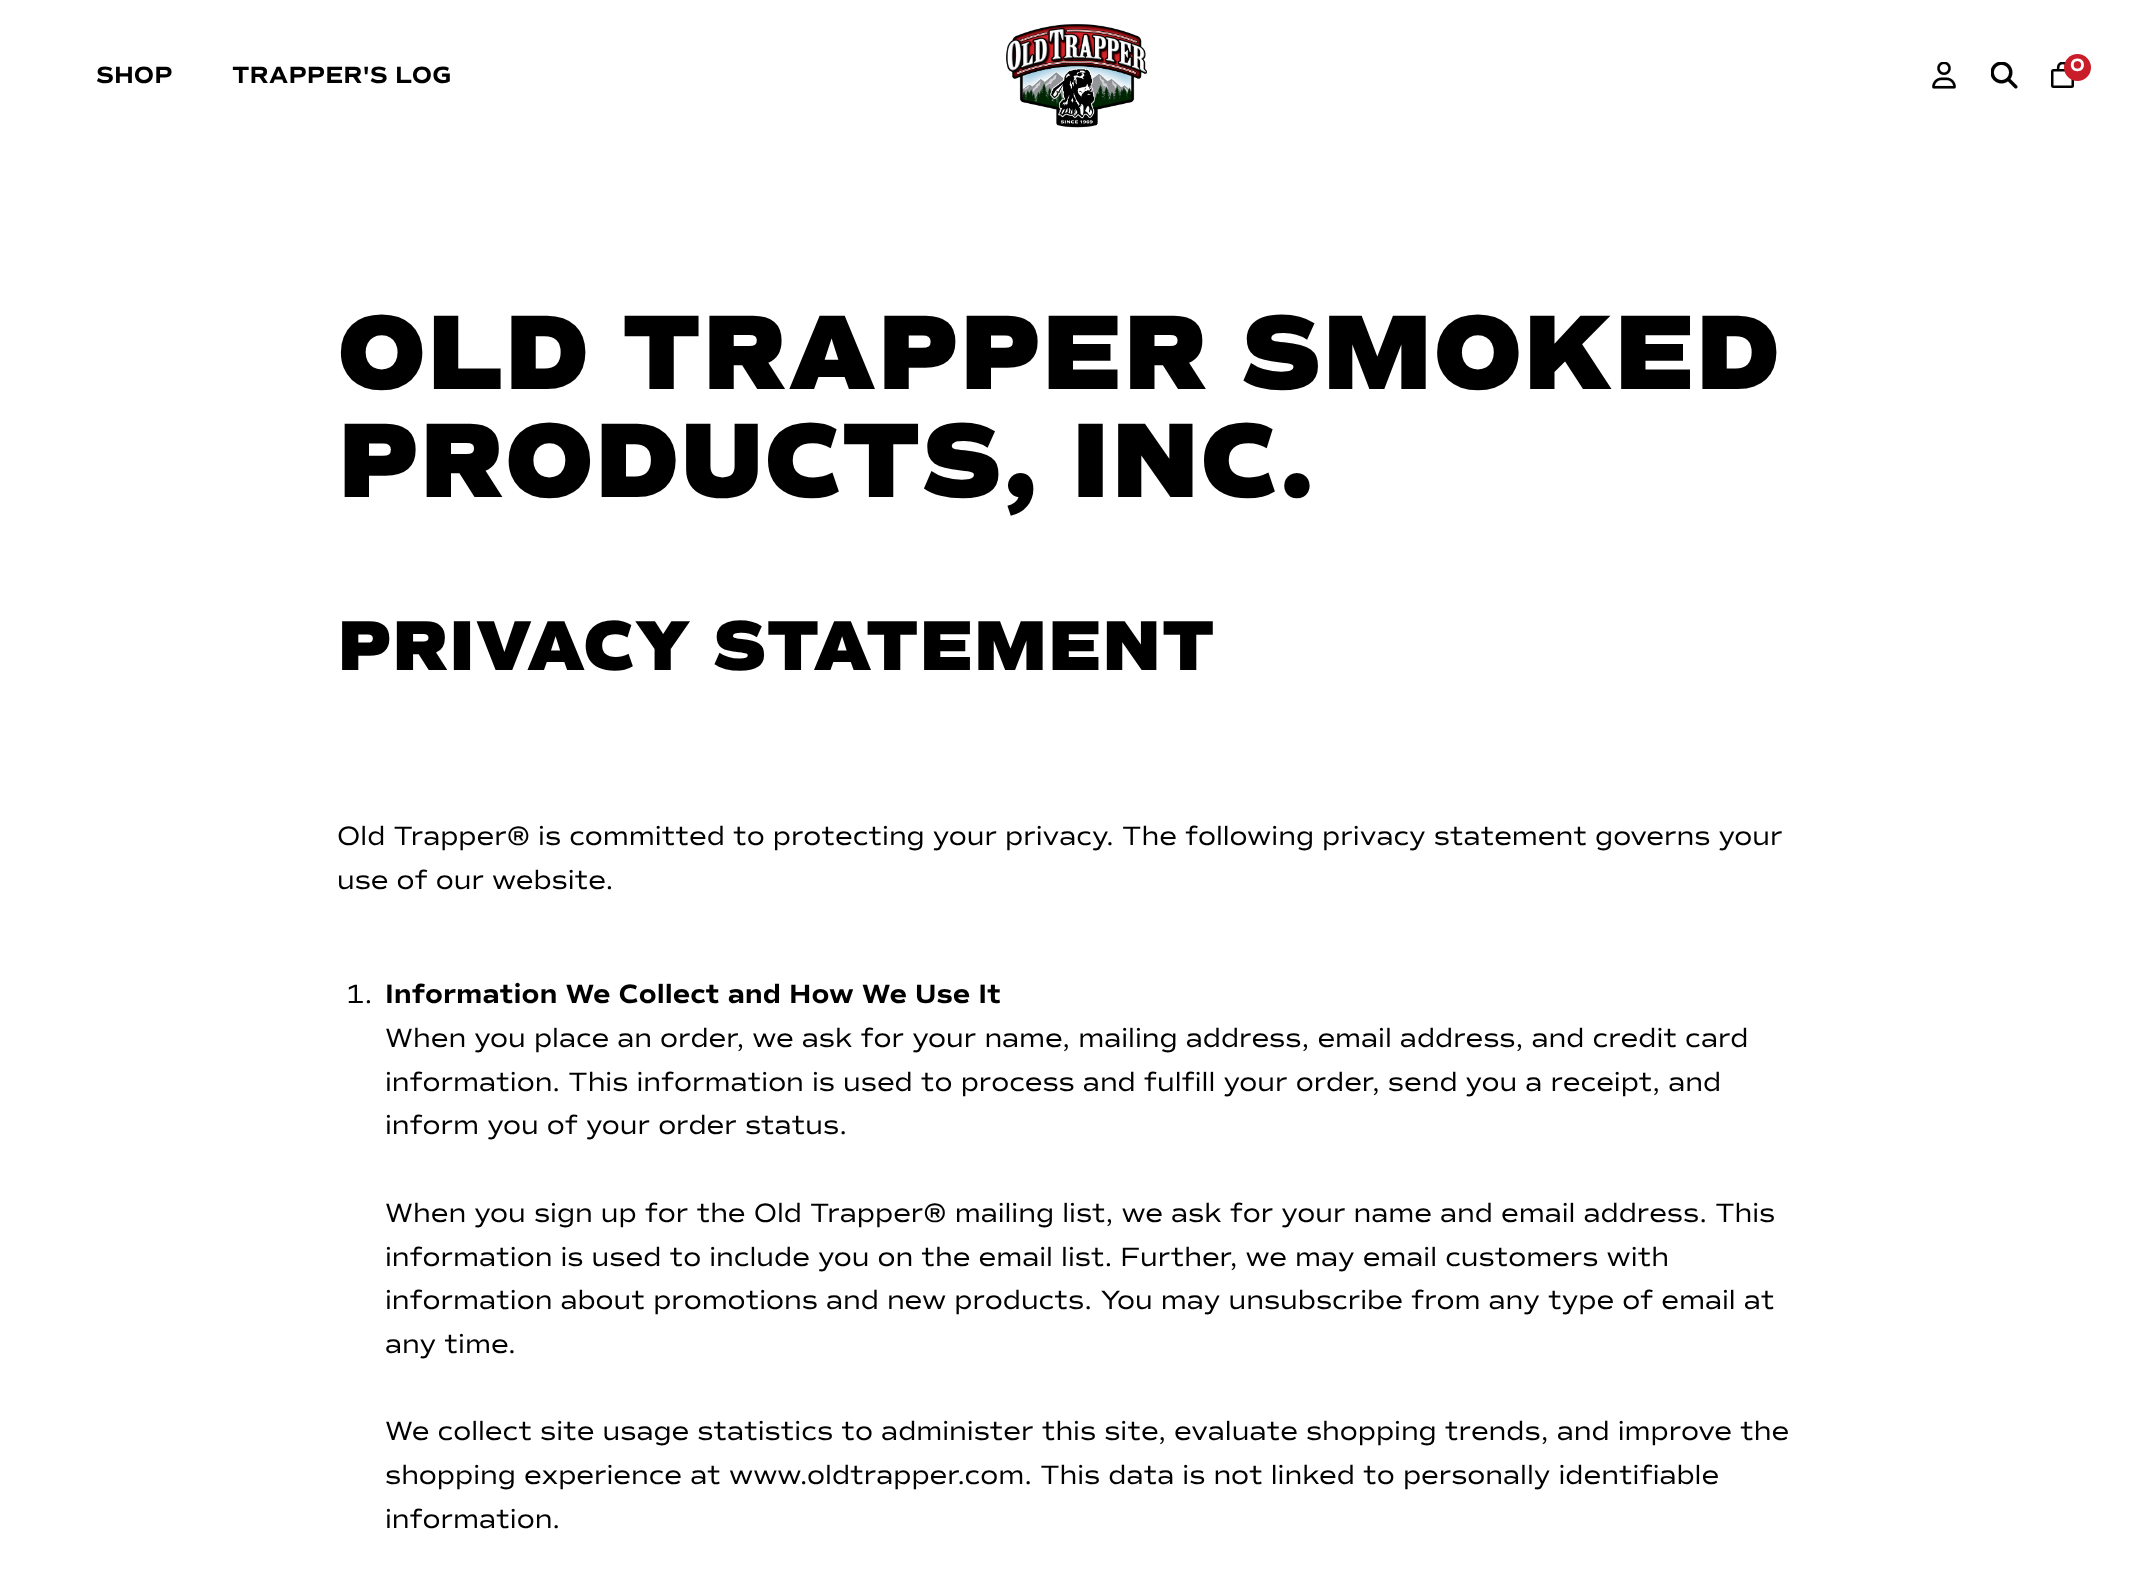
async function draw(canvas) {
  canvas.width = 2153
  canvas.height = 1580
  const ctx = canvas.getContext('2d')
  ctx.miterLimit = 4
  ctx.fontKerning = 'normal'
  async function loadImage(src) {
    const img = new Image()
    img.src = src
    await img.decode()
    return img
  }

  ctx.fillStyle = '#fff'
  ctx.fillRect(0, 0, 2153, 1580)
  ctx.font = 'bold 24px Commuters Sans'
  ctx.fillStyle = '#000'
  ctx.fillText('SHOP', 96, 83)
  ctx.fillText('TRAPPER\'S LOG', 232, 83)
  ctx.drawImage(await loadImage('image0.png'), 1006, 24, 141, 104)
  ctx.drawImage(await loadImage('image1.png'), 1932, 62, 24, 27)
  ctx.drawImage(await loadImage('image2.png'), 1991, 62, 27, 27)
  ctx.beginPath()
  ctx.roundRect(2052.25, 70.25, 20.5, 16.5, 1.25)
  ctx.strokeStyle = '#000'
  ctx.lineWidth = 2.5
  ctx.stroke()
  ctx.save()
  ctx.beginPath()
  ctx.rect(2049, 62, 27, 27)
  ctx.clip()
  ctx.beginPath()
  ctx.moveTo(2058, 69)
  ctx.lineTo(2058.5, 65.5)
  ctx.bezierCurveTo(2060, 62, 2065.5, 62, 2067, 65.5)
  ctx.lineTo(2067.5, 69)
  ctx.stroke()
  ctx.restore()
  ctx.fillStyle = '#c91d29'
  ctx.beginPath()
  ctx.arc(2077.5, 67.5, 13.5, 0, 2 * Math.PI)
  ctx.fill()
  ctx.font = 'bold 18px Commuters Sans'
  ctx.fillStyle = '#fff'
  ctx.fillText('0', 2070, 71)
  ctx.font = '900 107.75px Commuters Sans'
  ctx.fillStyle = '#000'
  ctx.fillText('OLD TRAPPER SMOKED', 337, 389)
  ctx.fillText('PRODUCTS, INC.', 337, 497)
  ctx.font = '900 71.75px Commuters Sans'
  ctx.fillText('PRIVACY STATEMENT', 337, 670)
  ctx.font = '27px Commuters Sans'
  ctx.fillText('Old Trapper® is committed to protecting your privacy. The following privacy statement governs your', 337, 845)
  ctx.fillText('use of our website.', 337, 889)
  ctx.fillText('1.', 347, 1003)
  ctx.font = 'bold 27px Commuters Sans'
  ctx.fillText('Information We Collect and How We Use It', 385, 1003)
  ctx.font = '27px Commuters Sans'
  ctx.fillText('When you place an order, we ask for your name, mailing address, email address, and credit card', 385, 1047)
  ctx.fillText('information. This information is used to process and fulfill your order, send you a receipt, and', 385, 1091)
  ctx.fillText('inform you of your order status.', 385, 1134)
  ctx.fillText('When you sign up for the Old Trapper® mailing list, we ask for your name and email address. This', 385, 1222)
  ctx.fillText('information is used to include you on the email list. Further, we may email customers with', 385, 1266)
  ctx.fillText('information about promotions and new products. You may unsubscribe from any type of email at', 385, 1309)
  ctx.fillText('any time.', 385, 1353)
  ctx.fillText('We collect site usage statistics to administer this site, evaluate shopping trends, and improve the', 385, 1440)
  ctx.fillText('shopping experience at www.oldtrapper.com. This data is not linked to personally identifiable', 385, 1484)
  ctx.fillText('information.', 385, 1528)
}

draw(document.querySelector('canvas'))
